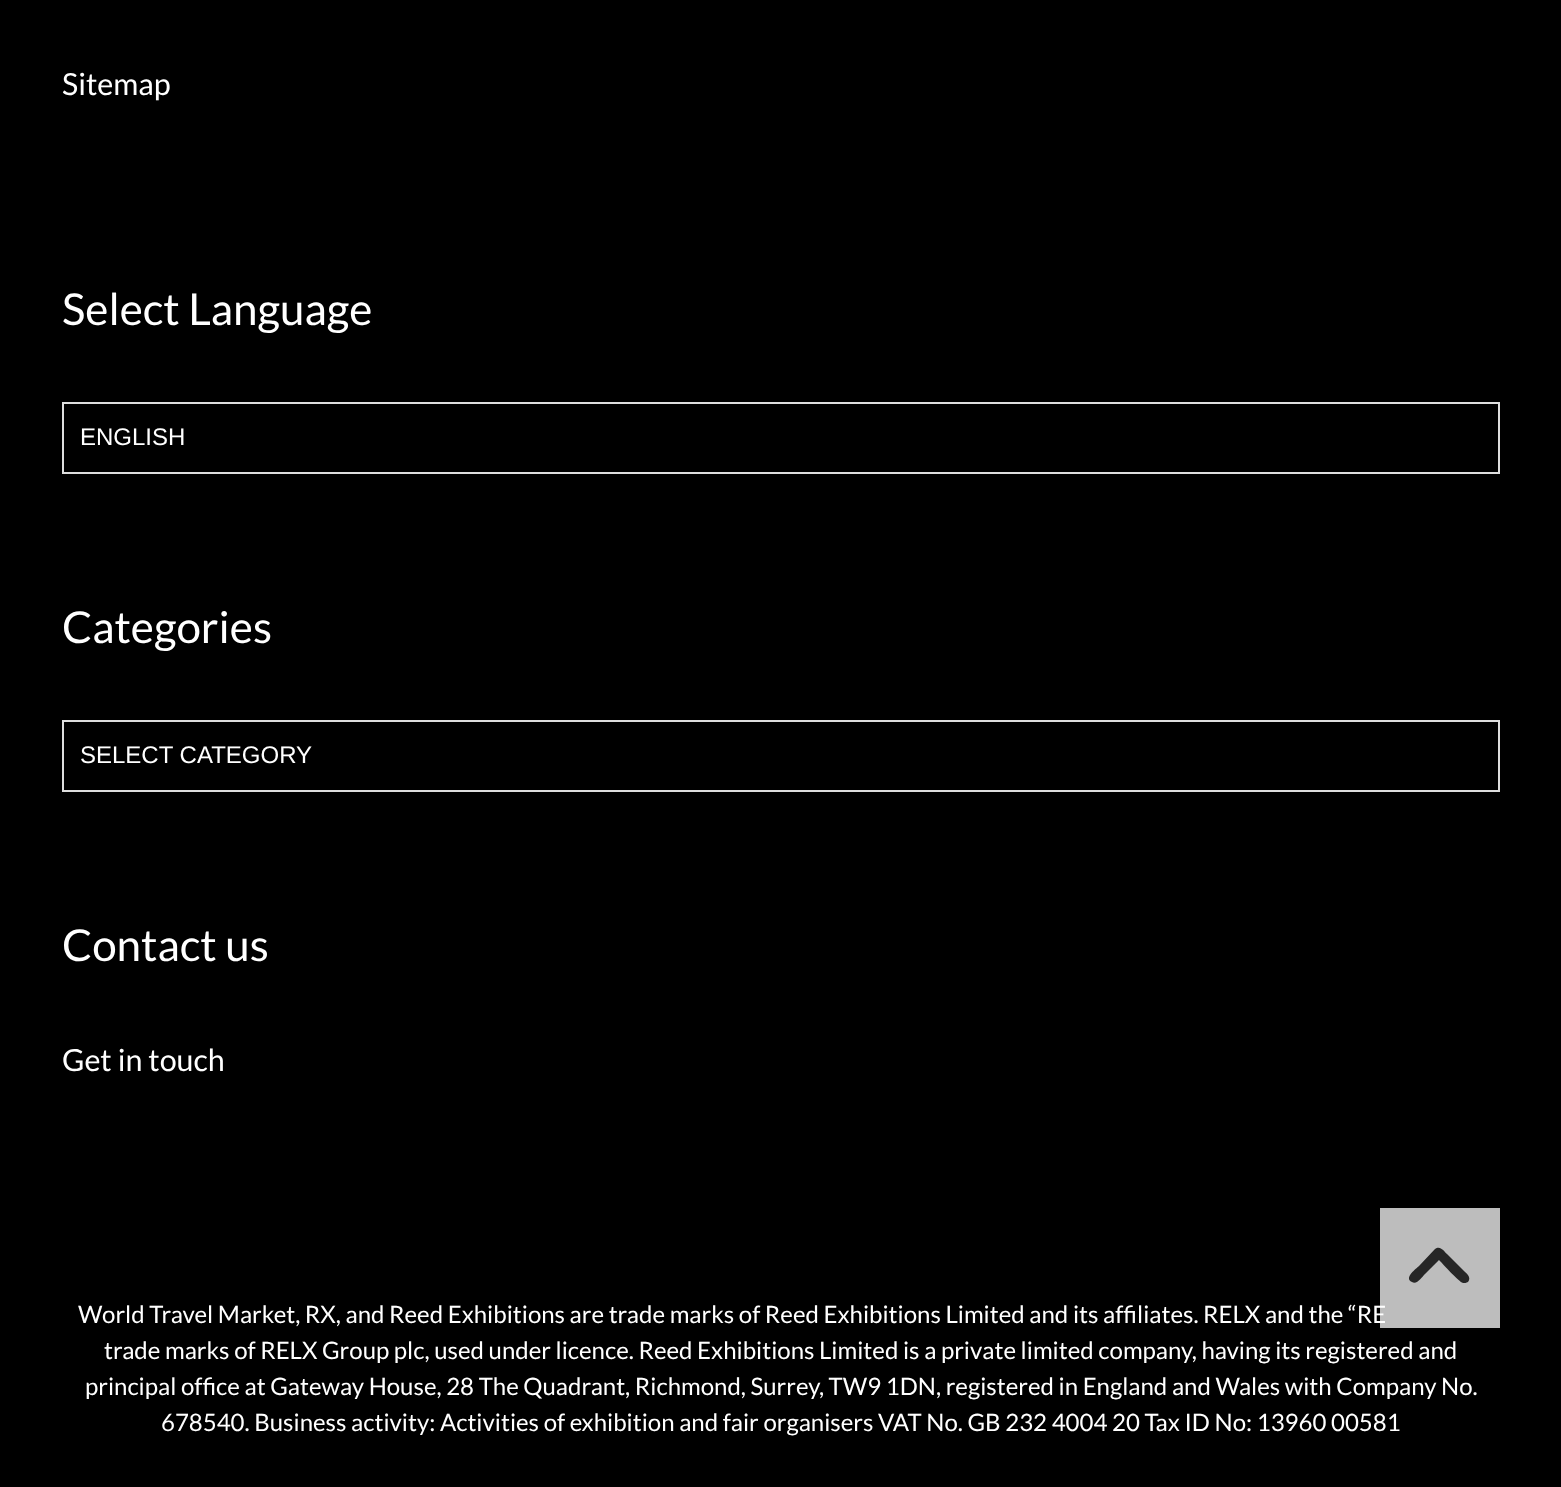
async function draw(canvas) {
  canvas.width = 1561
  canvas.height = 1487
  const ctx = canvas.getContext('2d')
  ctx.miterLimit = 4
  ctx.fontKerning = 'normal'

  ctx.fillStyle = '#000'
  ctx.fillRect(0, 0, 1561, 1487)
  ctx.font = '30.5px Lato'
  ctx.fillStyle = '#fff'
  ctx.fillText('Sitemap', 62, 95)
  ctx.font = '44px Lato'
  ctx.fillText('Select Language', 62, 325)
  ctx.strokeStyle = '#dedede'
  ctx.lineWidth = 2
  ctx.strokeRect(63, 403, 1436, 70)
  ctx.font = '24px Liberation Sans'
  ctx.fillText('ENGLISH', 80, 445)
  ctx.font = '44px Lato'
  ctx.fillText('Categories', 62, 643)
  ctx.strokeRect(63, 721, 1436, 70)
  ctx.font = '24px Liberation Sans'
  ctx.fillText('SELECT CATEGORY', 80, 763)
  ctx.font = '44px Lato'
  ctx.fillText('Contact us', 62, 961)
  ctx.font = '30.5px Lato'
  ctx.fillText('Get in touch', 62, 1071)
  ctx.font = '24px Lato'
  ctx.fillText('World Travel Market, RX, and Reed Exhibitions are trade marks of Reed Exhibitions Limited and its affiliates. RELX and the “RE', 78, 1323)
  ctx.fillText('trade marks of RELX Group plc, used under licence. Reed Exhibitions Limited is a private limited company, having its registered and', 104, 1359)
  ctx.fillText('principal office at Gateway House, 28 The Quadrant, Richmond, Surrey, TW9 1DN, registered in England and Wales with Company No.', 85, 1395)
  ctx.fillText('678540. Business activity: Activities of exhibition and fair organisers VAT No. GB 232 4004 20 Tax ID No: 13960 00581', 161, 1431)
  ctx.fillStyle = '#ffffffbd'
  ctx.fillRect(1380, 1208, 120, 120)
  ctx.fillStyle = '#262626'
  ctx.beginPath()
  ctx.moveTo(1435, 1249)
  ctx.bezierCurveTo(1440, 1245, 1444, 1251, 1447, 1254)
  ctx.lineTo(1463, 1270)
  ctx.bezierCurveTo(1466, 1273, 1472, 1277, 1468, 1282)
  ctx.bezierCurveTo(1466, 1283, 1465, 1283, 1463, 1283)
  ctx.bezierCurveTo(1459, 1282, 1443, 1264, 1439, 1260)
  ctx.lineTo(1425, 1274)
  ctx.bezierCurveTo(1422, 1277, 1417, 1285, 1412, 1282)
  ctx.bezierCurveTo(1403, 1278, 1417, 1268, 1419, 1266)
  ctx.closePath()
  ctx.fill()
}

draw(document.querySelector('canvas'))
